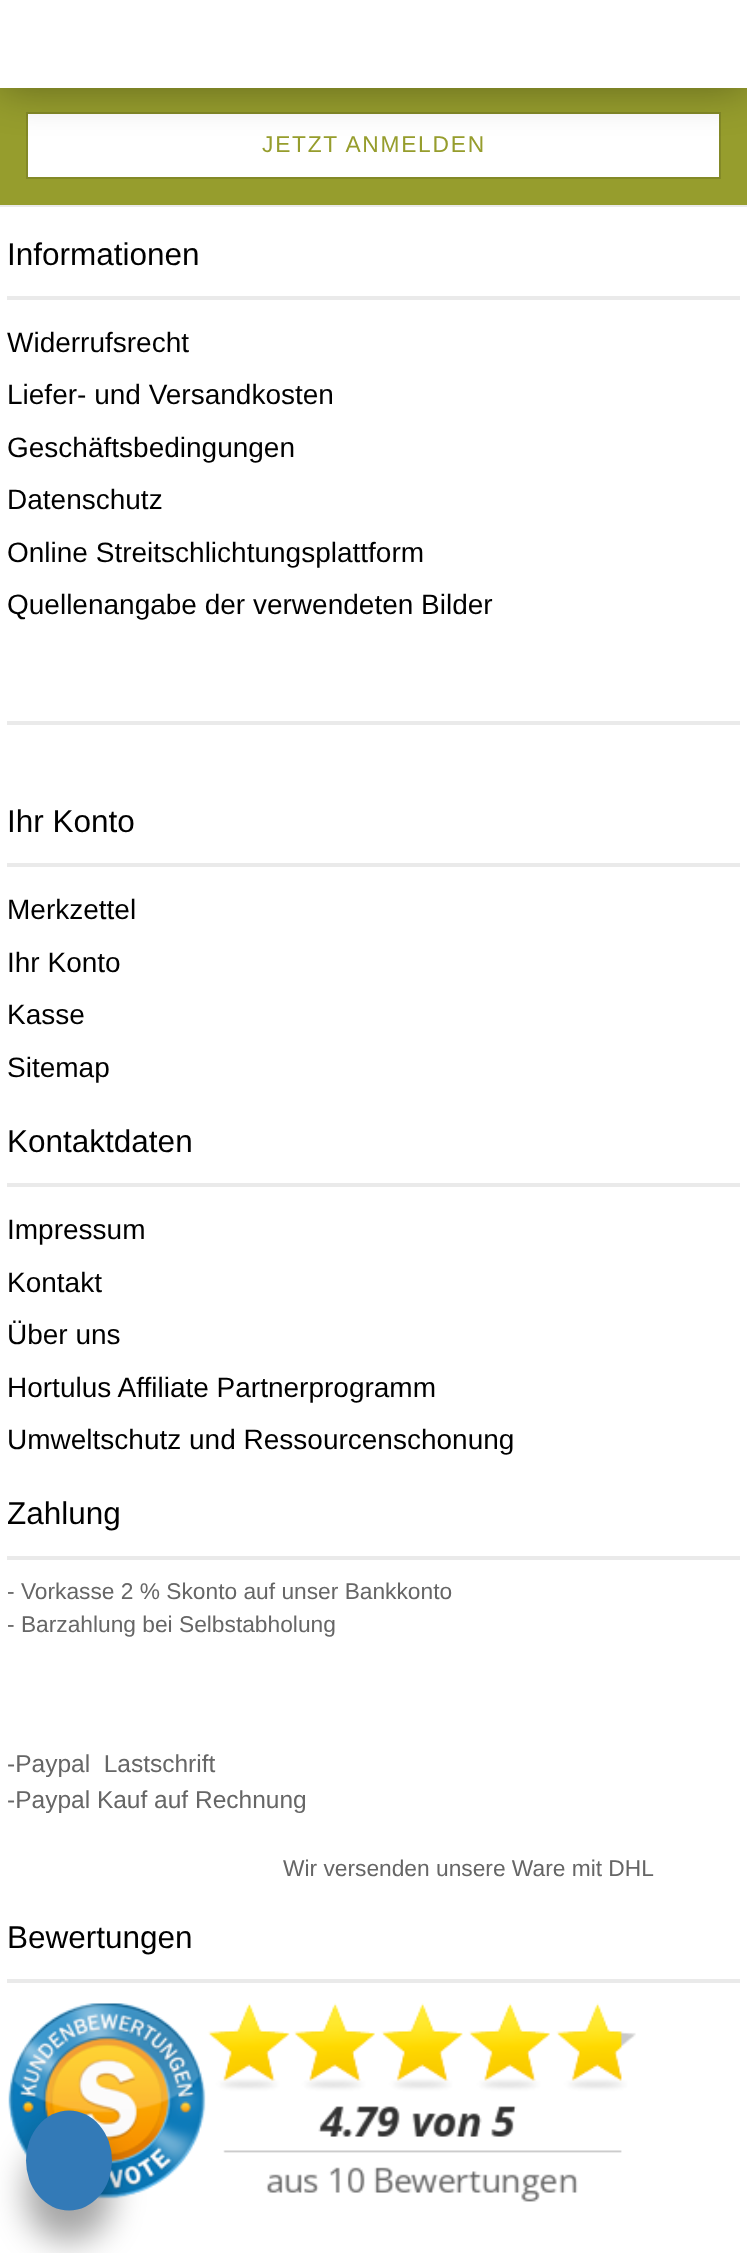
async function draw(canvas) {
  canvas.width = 747
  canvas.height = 2253
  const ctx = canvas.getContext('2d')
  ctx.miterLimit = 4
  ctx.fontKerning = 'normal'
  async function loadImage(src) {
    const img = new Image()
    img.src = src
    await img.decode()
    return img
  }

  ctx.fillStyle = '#fff'
  ctx.fillRect(0, 0, 747, 2253)
  ctx.fillStyle = '#969d2d'
  ctx.fillRect(0, 88, 747, 117)
  ctx.fillStyle = '#fff'
  ctx.beginPath()
  ctx.rect(27, 113, 693, 65)
  ctx.fill()
  ctx.strokeStyle = '#838927'
  ctx.lineWidth = 2
  ctx.stroke()
  ctx.fillStyle = '#00000059'
  ctx.filter = 'blur(22px)'
  ctx.beginPath()
  ctx.rect(0, 0, 747, 88)
  ctx.fill()
  ctx.filter = 'none'
  ctx.fillStyle = '#fff'
  ctx.fillRect(0, 0, 747, 88)
  ctx.letterSpacing = '1.75px'
  ctx.font = '22.75px Liberation Sans'
  ctx.fillStyle = '#969d2d'
  ctx.fillText('JETZT ANMELDEN', 262, 152)
  ctx.fillStyle = '#eaeaea'
  ctx.fillRect(0, 205, 747, 2)
  ctx.fillRect(7, 296, 733, 4)
  ctx.letterSpacing = '0px'
  ctx.font = '31.5px Liberation Sans'
  ctx.fillStyle = '#000'
  ctx.fillText('Informationen', 7, 265)
  ctx.font = '28px Liberation Sans'
  ctx.fillText('Widerrufsrecht', 7, 352)
  ctx.fillText('Liefer- und Versandkosten', 7, 404)
  ctx.fillText('Geschäftsbedingungen', 7, 457)
  ctx.fillText('Datenschutz', 7, 509)
  ctx.fillText('Online Streitschlichtungsplattform', 7, 562)
  ctx.fillText('Quellenangabe der verwendeten Bilder', 7, 614)
  ctx.fillStyle = '#eaeaea'
  ctx.fillRect(7, 721, 733, 4)
  ctx.fillRect(7, 863, 733, 4)
  ctx.font = '31.5px Liberation Sans'
  ctx.fillStyle = '#000'
  ctx.fillText('Ihr Konto', 7, 832)
  ctx.font = '28px Liberation Sans'
  ctx.fillText('Merkzettel', 7, 919)
  ctx.fillText('Ihr Konto', 7, 972)
  ctx.fillText('Kasse', 7, 1024)
  ctx.fillText('Sitemap', 7, 1077)
  ctx.fillStyle = '#eaeaea'
  ctx.fillRect(7, 1183, 733, 4)
  ctx.font = '31.5px Liberation Sans'
  ctx.fillStyle = '#000'
  ctx.fillText('Kontaktdaten', 7, 1152)
  ctx.font = '28px Liberation Sans'
  ctx.fillText('Impressum', 7, 1239)
  ctx.fillText('Kontakt', 7, 1292)
  ctx.fillText('Über uns', 7, 1344)
  ctx.fillText('Hortulus Affiliate Partnerprogramm', 7, 1397)
  ctx.fillText('Umweltschutz und Ressourcenschonung', 7, 1449)
  ctx.fillStyle = '#eaeaea'
  ctx.fillRect(7, 1556, 733, 4)
  ctx.font = '31.5px Liberation Sans'
  ctx.fillStyle = '#000'
  ctx.fillText('Zahlung', 7, 1524)
  ctx.font = '22.75px Liberation Sans'
  ctx.fillStyle = '#666'
  ctx.fillText('- Vorkasse 2 % Skonto auf unser Bankkonto', 7, 1599)
  ctx.fillText('- Barzahlung bei Selbstabholung', 7, 1632)
  ctx.font = '24.5px Liberation Sans'
  ctx.fillText('-Paypal  Lastschrift', 7, 1772)
  ctx.fillText('-Paypal Kauf auf Rechnung', 7, 1808)
  ctx.font = '22.75px Liberation Sans'
  ctx.fillText('Wir versenden unsere Ware mit DHL', 283, 1876)
  ctx.fillStyle = '#eaeaea'
  ctx.fillRect(7, 1979, 733, 4)
  ctx.font = '31.5px Liberation Sans'
  ctx.fillStyle = '#000'
  ctx.fillText('Bewertungen', 7, 1948)
  ctx.drawImage(await loadImage('image0.png'), 8, 2003, 628, 199)
  ctx.fillStyle = '#00000059'
  ctx.filter = 'blur(16px)'
  ctx.beginPath()
  ctx.roundRect(26, 2142, 86, 100, 43)
  ctx.fill()
  ctx.filter = 'none'
  ctx.fillStyle = '#337ab7'
  ctx.beginPath()
  ctx.ellipse(69, 2160.5, 43, 50, 0, 0, 2 * Math.PI)
  ctx.fill()
}

draw(document.querySelector('canvas'))
